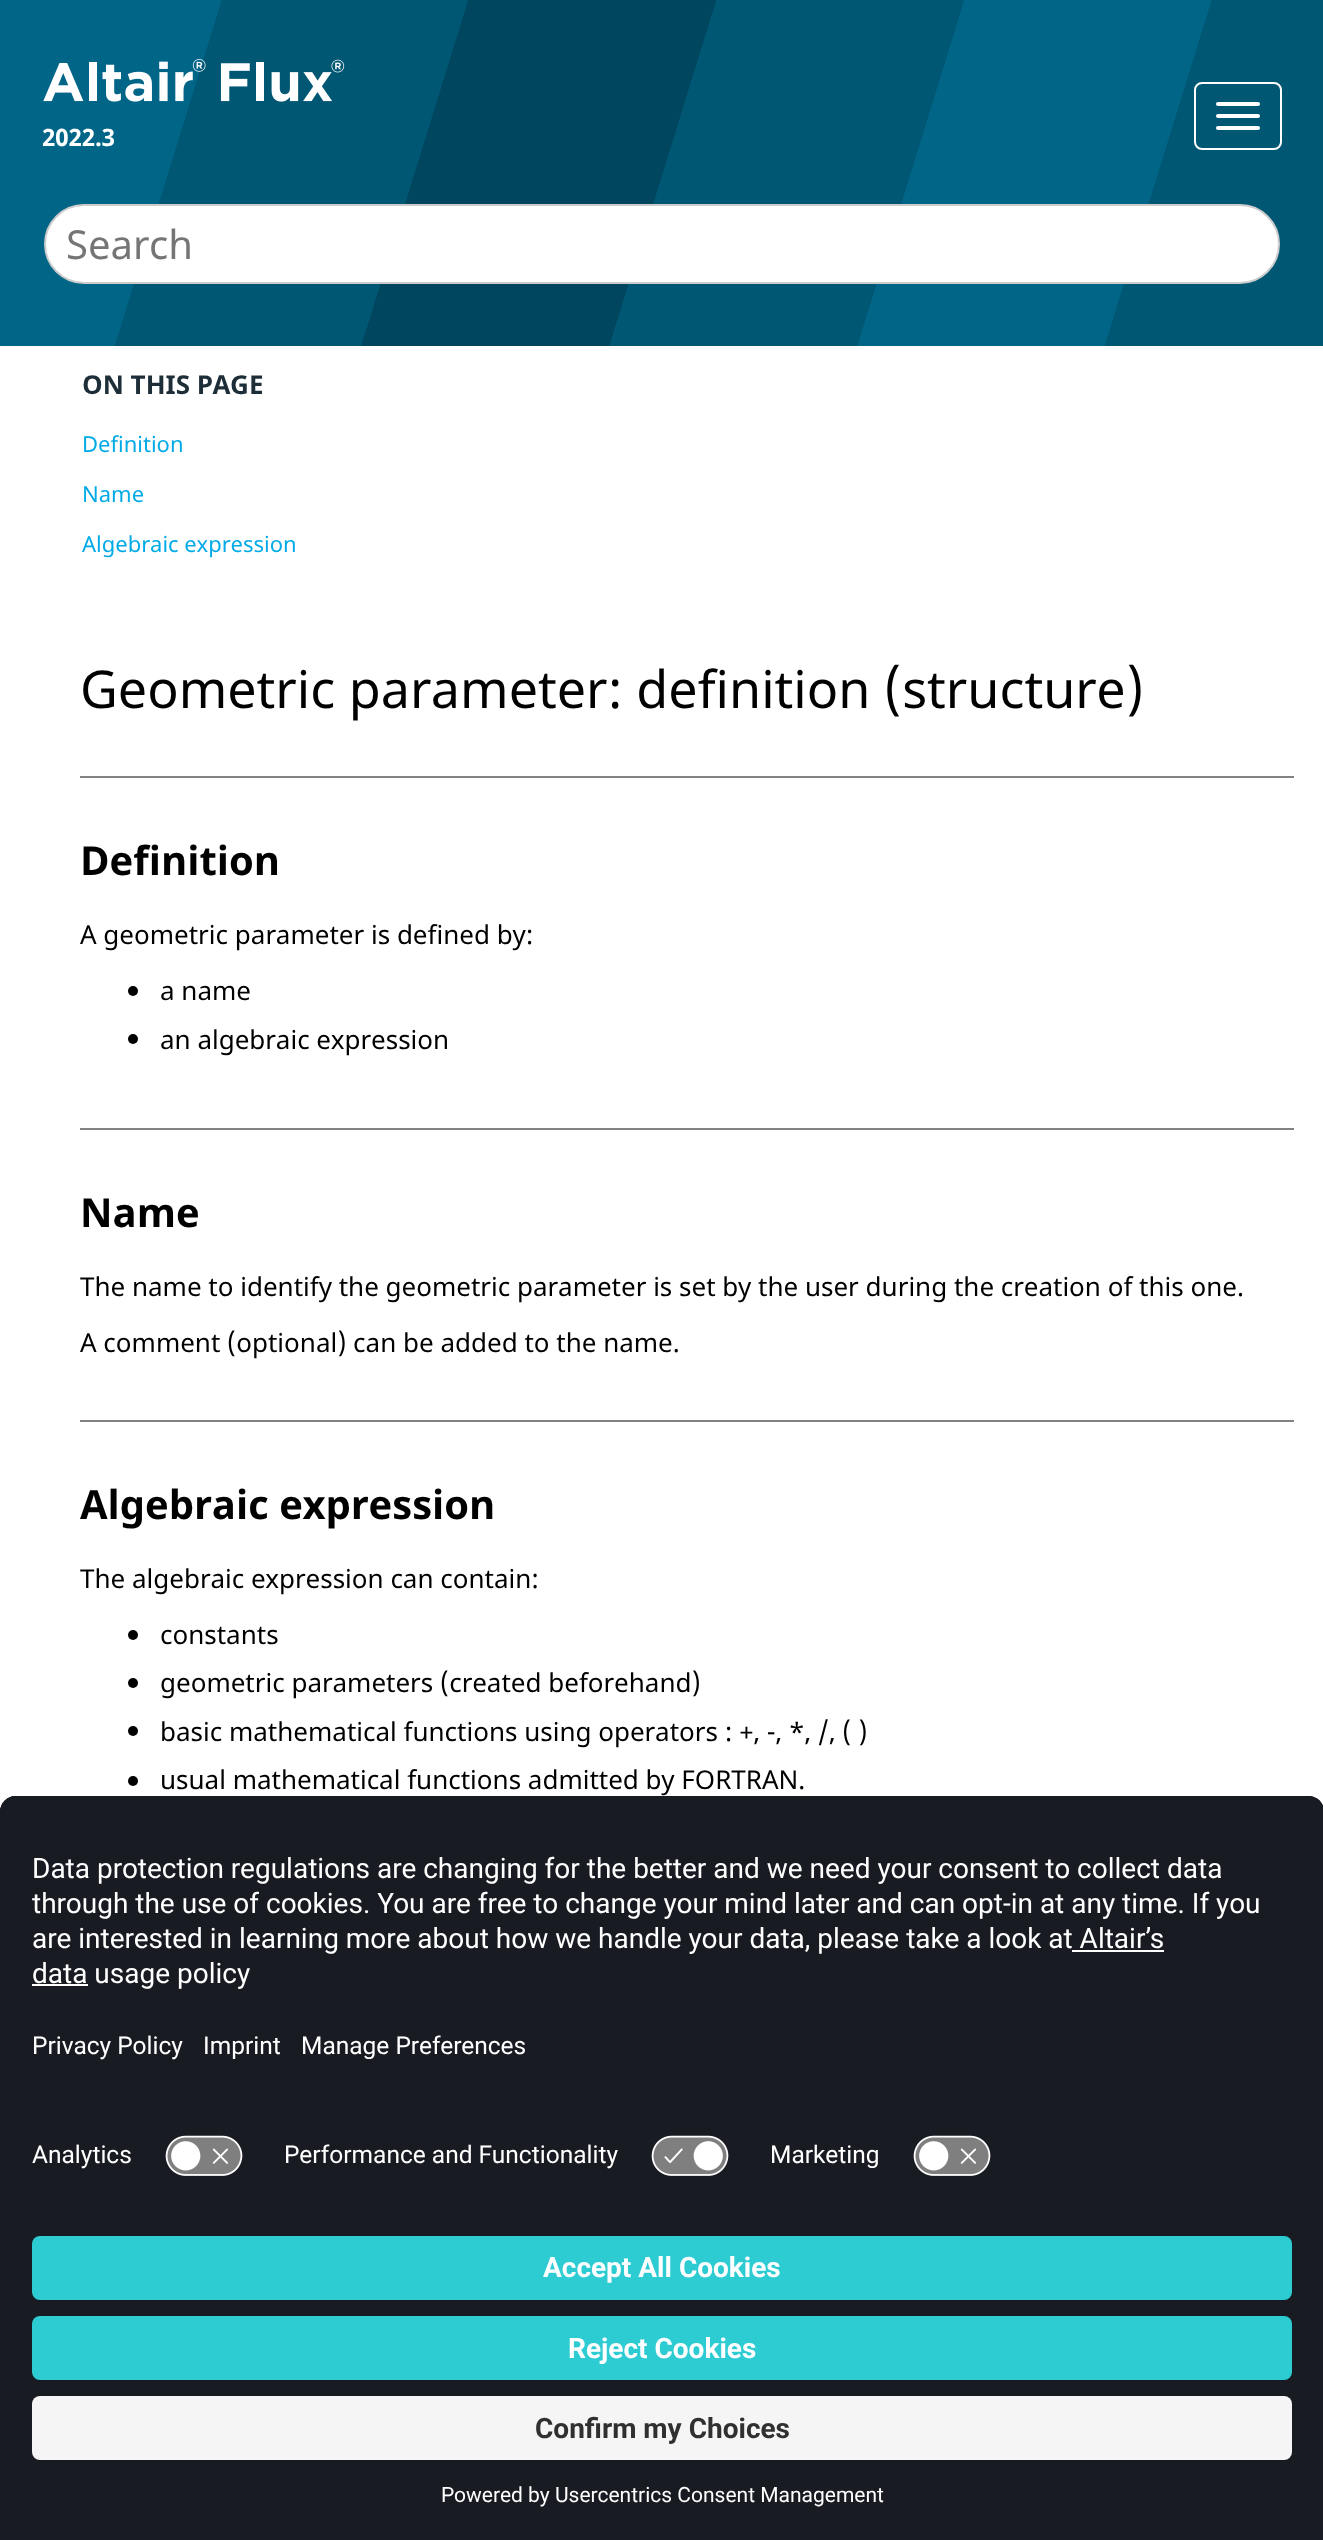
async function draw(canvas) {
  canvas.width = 1323
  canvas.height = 2540
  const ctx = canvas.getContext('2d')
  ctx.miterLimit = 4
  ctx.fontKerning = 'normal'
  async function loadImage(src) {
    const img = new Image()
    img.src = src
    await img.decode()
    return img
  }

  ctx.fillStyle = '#fff'
  ctx.fillRect(0, 0, 1323, 2540)
  ctx.drawImage(await loadImage('image0.png'), 0, 0, 1323, 346)
  ctx.drawImage(await loadImage('image1.png'), 43, 59, 302, 43)
  ctx.font = 'bold 24px Noto Sans'
  ctx.fillText('2022.3', 42, 146)
  ctx.beginPath()
  ctx.roundRect(1195, 83, 86, 66, 7)
  ctx.strokeStyle = '#fff'
  ctx.lineWidth = 2
  ctx.stroke()
  ctx.beginPath()
  ctx.roundRect(1216, 102, 44, 4, 2)
  ctx.fill()
  ctx.beginPath()
  ctx.roundRect(1216, 114, 44, 4, 2)
  ctx.fill()
  ctx.beginPath()
  ctx.roundRect(1216, 126, 44, 4, 2)
  ctx.fill()
  ctx.beginPath()
  ctx.roundRect(45, 205, 1234, 78, 39)
  ctx.fill()
  ctx.strokeStyle = '#ccc'
  ctx.stroke()
  ctx.font = '40px Noto Sans'
  ctx.fillStyle = '#757575'
  ctx.fillText('Search', 66, 259)
  ctx.font = 'bold 26px Noto Sans'
  ctx.fillStyle = '#1d2e38'
  ctx.fillText('ON THIS PAGE', 82, 394)
  ctx.font = '22px Noto Sans'
  ctx.fillStyle = '#00aae6'
  ctx.fillText('Definition', 82, 452)
  ctx.fillText('Name', 82, 502)
  ctx.fillText('Algebraic expression', 82, 552)
  ctx.font = '52px Noto Sans'
  ctx.fillStyle = '#000'
  ctx.fillText('Geometric parameter: definition (structure)', 80, 708)
  ctx.fillStyle = '#828282'
  ctx.fillRect(80, 776, 1214, 2)
  ctx.font = 'bold 40px Noto Sans'
  ctx.fillStyle = '#000'
  ctx.fillText('Definition', 80, 875)
  ctx.font = '26px Noto Sans'
  ctx.fillText('A geometric parameter is defined by:', 80, 944)
  ctx.beginPath()
  ctx.arc(133, 991, 5, 0, 2 * Math.PI)
  ctx.fill()
  ctx.fillText('a name', 160, 1000)
  ctx.beginPath()
  ctx.arc(133, 1039, 5, 0, 2 * Math.PI)
  ctx.fill()
  ctx.fillText('an algebraic expression', 160, 1049)
  ctx.fillStyle = '#828282'
  ctx.fillRect(80, 1128, 1214, 2)
  ctx.font = 'bold 40px Noto Sans'
  ctx.fillStyle = '#000'
  ctx.fillText('Name', 80, 1227)
  ctx.font = '26px Noto Sans'
  ctx.fillText('The name to identify the geometric parameter is set by the user during the creation of this one.', 80, 1296)
  ctx.fillText('A comment (optional) can be added to the name.', 80, 1352)
  ctx.fillStyle = '#828282'
  ctx.fillRect(80, 1420, 1214, 2)
  ctx.font = 'bold 40px Noto Sans'
  ctx.fillStyle = '#000'
  ctx.fillText('Algebraic expression', 80, 1519)
  ctx.font = '26px Noto Sans'
  ctx.fillText('The algebraic expression can contain:', 80, 1588)
  ctx.beginPath()
  ctx.arc(133, 1635, 5, 0, 2 * Math.PI)
  ctx.fill()
  ctx.fillText('constants', 160, 1644)
  ctx.beginPath()
  ctx.arc(133, 1683, 5, 0, 2 * Math.PI)
  ctx.fill()
  ctx.fillText('geometric parameters (created beforehand)', 160, 1692)
  ctx.beginPath()
  ctx.arc(133, 1731, 5, 0, 2 * Math.PI)
  ctx.fill()
  ctx.fillText('basic mathematical functions using operators : +, -, *, /, ( )', 160, 1741)
  ctx.beginPath()
  ctx.arc(133, 1781, 5, 0, 2 * Math.PI)
  ctx.fill()
  ctx.fillText('usual mathematical functions admitted by FORTRAN.', 160, 1789)
  ctx.fillStyle = '#191b23'
  ctx.beginPath()
  ctx.moveTo(16, 1796)
  ctx.lineTo(1308, 1796)
  ctx.bezierCurveTo(1317, 1796, 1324, 1803, 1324, 1812)
  ctx.lineTo(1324, 2540)
  ctx.lineTo(0, 2540)
  ctx.lineTo(0, 1812)
  ctx.bezierCurveTo(0, 1803, 7, 1796, 16, 1796)
  ctx.closePath()
  ctx.fill()
  ctx.beginPath()
  ctx.moveTo(16, 1796)
  ctx.lineTo(1308, 1796)
  ctx.bezierCurveTo(1317, 1796, 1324, 1803, 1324, 1812)
  ctx.lineTo(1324, 2212)
  ctx.lineTo(0, 2212)
  ctx.lineTo(0, 1812)
  ctx.bezierCurveTo(0, 1803, 7, 1796, 16, 1796)
  ctx.closePath()
  ctx.fill()
  ctx.beginPath()
  ctx.moveTo(16, 1796)
  ctx.lineTo(1308, 1796)
  ctx.bezierCurveTo(1317, 1796, 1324, 1803, 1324, 1812)
  ctx.lineTo(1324, 2124)
  ctx.lineTo(0, 2124)
  ctx.lineTo(0, 1812)
  ctx.bezierCurveTo(0, 1803, 7, 1796, 16, 1796)
  ctx.closePath()
  ctx.fill()
  ctx.font = '28px Roboto'
  ctx.fillStyle = '#fff'
  ctx.fillText('Data protection regulations are changing for the better and we need your consent to collect data', 32, 1878)
  ctx.fillText('through the use of cookies. You are free to change your mind later and can opt-in at any time. If you', 32, 1913)
  ctx.fillText('are interested in learning more about how we handle your data, please take a look at Altair’s', 32, 1948)
  ctx.fillRect(32, 1984, 56, 2)
  ctx.fillText('data usage policy', 32, 1983)
  ctx.fillRect(1072, 1950, 92, 2)
  ctx.font = '24.5px Roboto'
  ctx.fillText('Privacy Policy', 32, 2054)
  ctx.fillText('Imprint', 203, 2054)
  ctx.fillText('Manage Preferences', 301, 2054)
  ctx.fillText('Analytics', 32, 2163)
  ctx.drawImage(await loadImage('image2.png'), 165, 2135, 78, 41)
  ctx.fillText('Performance and Functionality', 284, 2163)
  ctx.drawImage(await loadImage('image3.png'), 651, 2135, 78, 41)
  ctx.fillText('Marketing', 770, 2163)
  ctx.drawImage(await loadImage('image2.png'), 913, 2135, 78, 41)
  ctx.fillStyle = '#2dccd3'
  ctx.beginPath()
  ctx.roundRect(32, 2236, 1260, 64, 8)
  ctx.fill()
  ctx.font = 'bold 28px Roboto'
  ctx.fillStyle = '#fff'
  ctx.fillText('Accept All Cookies', 543, 2277)
  ctx.fillStyle = '#2dccd3'
  ctx.beginPath()
  ctx.roundRect(32, 2316, 1260, 64, 8)
  ctx.fill()
  ctx.fillStyle = '#fff'
  ctx.fillText('Reject Cookies', 568, 2358)
  ctx.fillStyle = '#f5f5f5'
  ctx.beginPath()
  ctx.roundRect(32, 2396, 1260, 64, 8)
  ctx.fill()
  ctx.fillStyle = '#303030'
  ctx.fillText('Confirm my Choices', 535, 2438)
  ctx.font = '21px Roboto'
  ctx.fillStyle = '#fff'
  ctx.fillText('Powered by Usercentrics Consent Management', 441, 2502)
}

draw(document.querySelector('canvas'))
